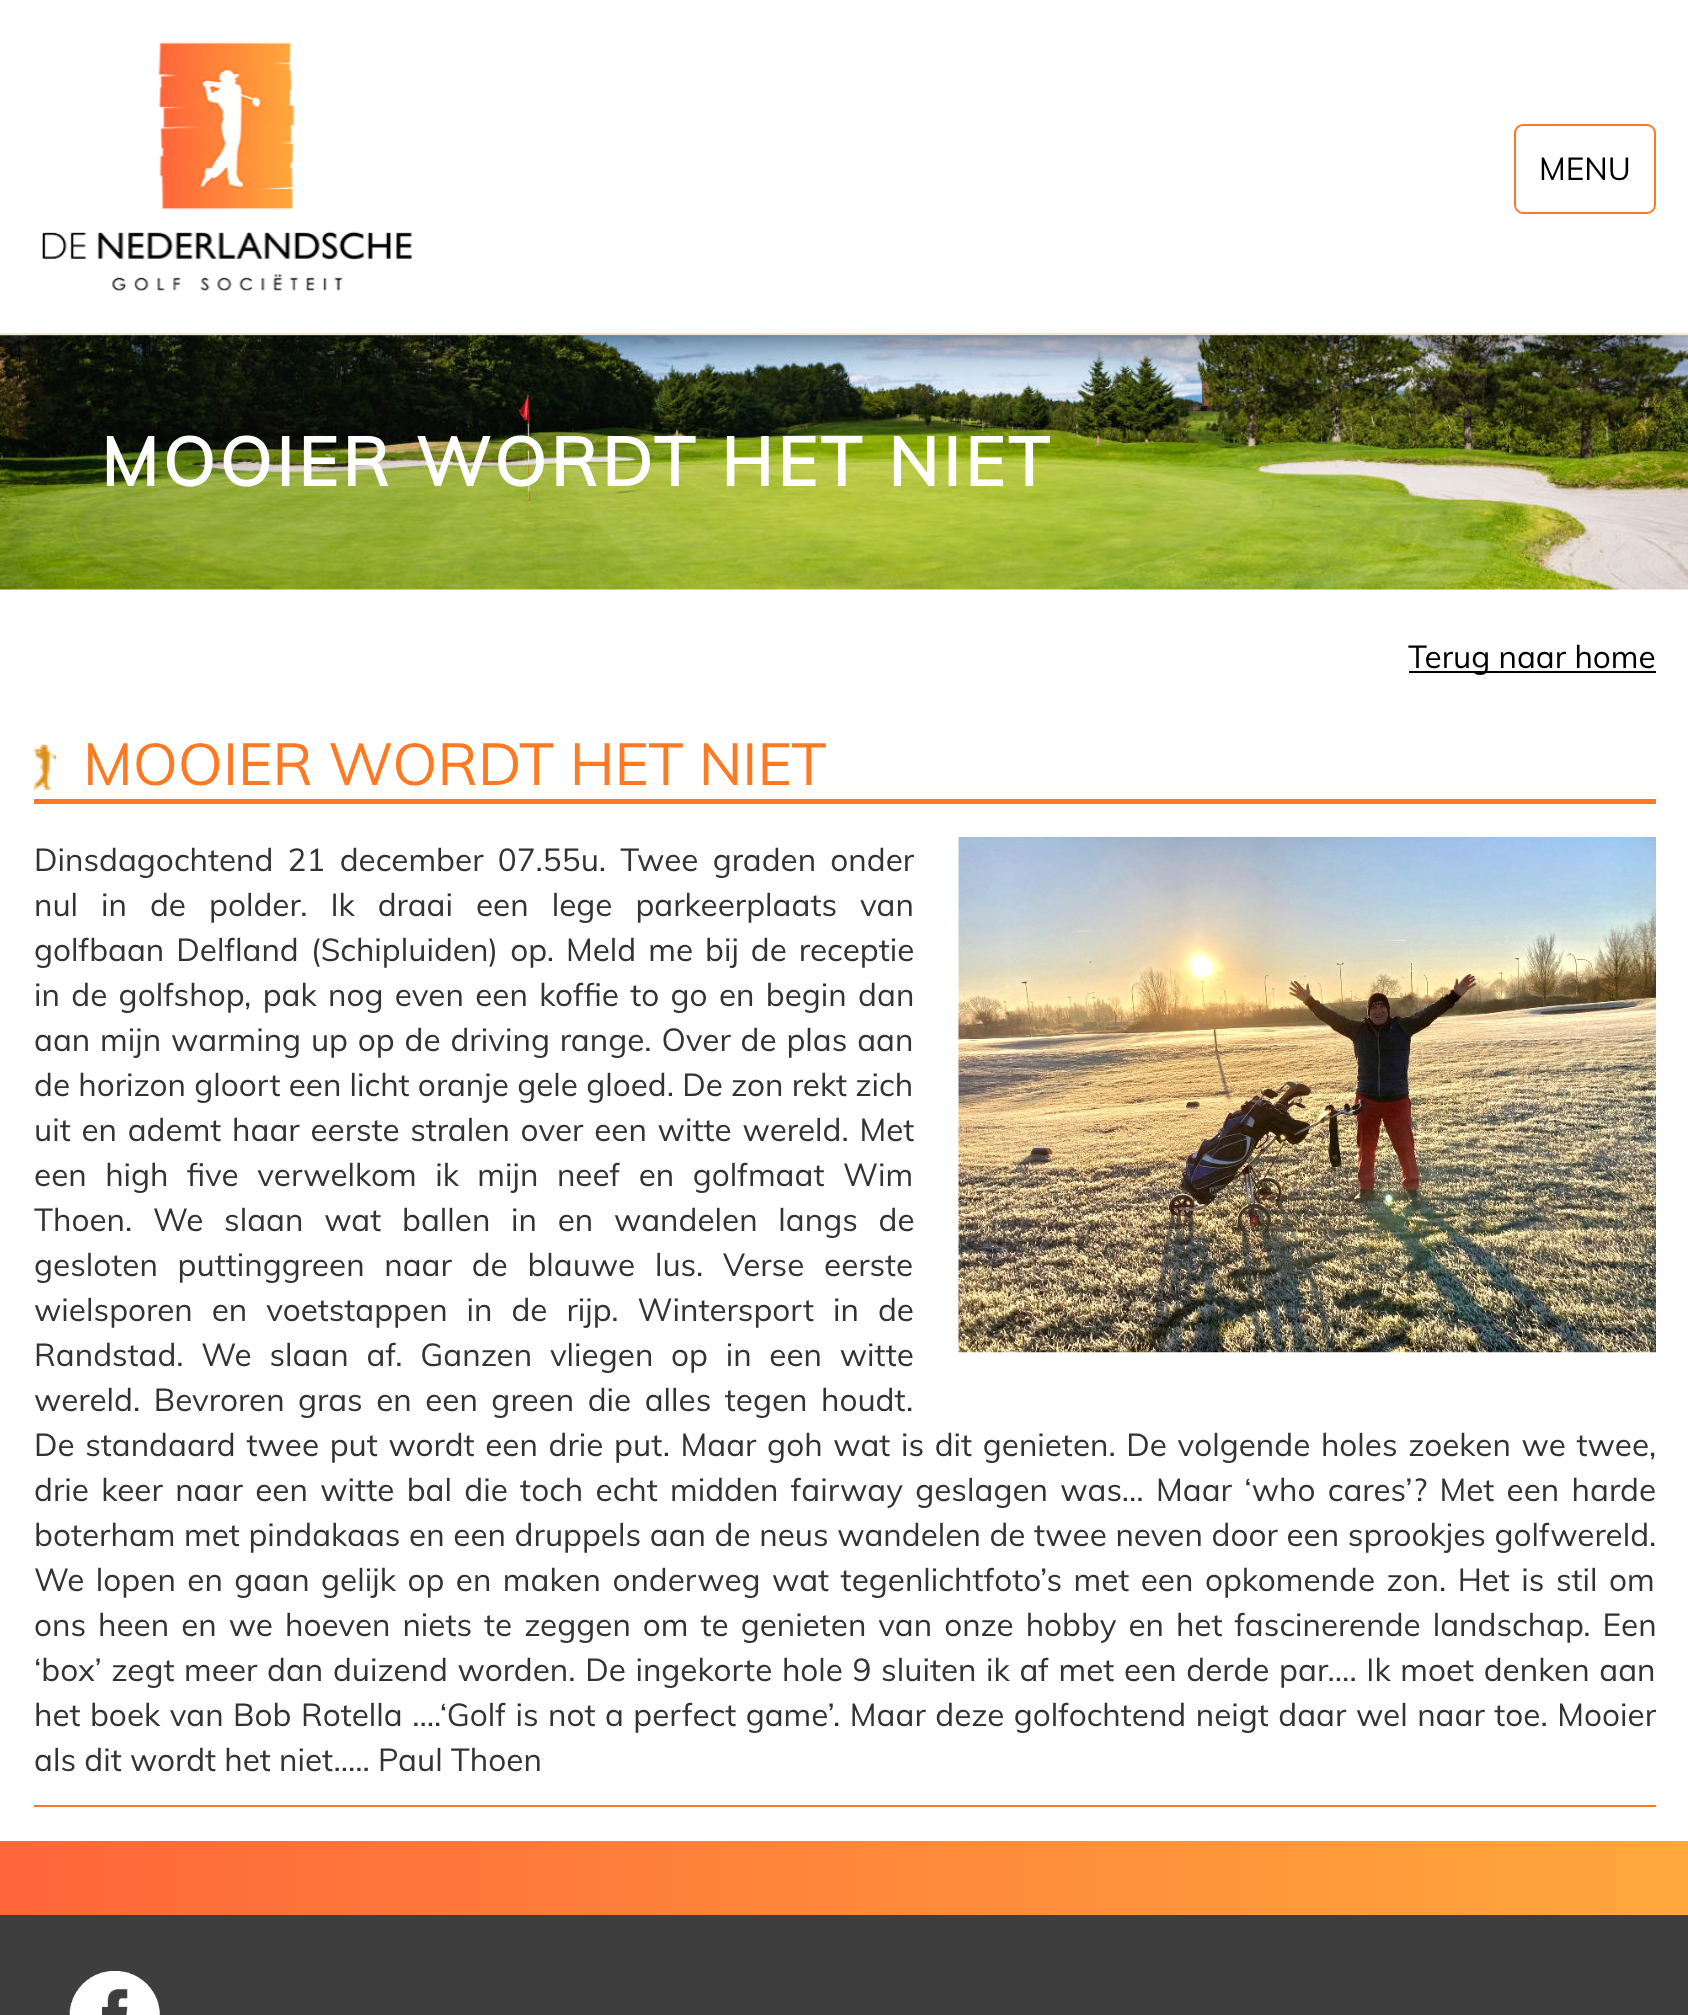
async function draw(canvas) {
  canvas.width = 1688
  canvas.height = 2015
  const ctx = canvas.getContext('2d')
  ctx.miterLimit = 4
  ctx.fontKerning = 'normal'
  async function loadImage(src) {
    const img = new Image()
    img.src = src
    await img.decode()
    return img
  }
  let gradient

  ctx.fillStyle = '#3f3e3e'
  ctx.fillRect(0, 0, 1688, 2015)
  ctx.fillStyle = '#fff'
  ctx.fillRect(0, 335, 1688, 1506)
  ctx.drawImage(await loadImage('image1.png'), 0, 335, 1688, 255)
  ctx.fillStyle = '#000000b3'
  ctx.filter = 'blur(22.5px)'
  ctx.beginPath()
  ctx.rect(14, 25, 1662, 308)
  ctx.fill()
  ctx.filter = 'none'
  ctx.fillStyle = '#fff'
  ctx.fillRect(0, 0, 1688, 333)
  ctx.fillStyle = '#f4e8d4'
  ctx.fillRect(0, 333, 1688, 2)
  ctx.drawImage(await loadImage('image0.png'), 42, 42, 370, 249)
  ctx.beginPath()
  ctx.roundRect(1515, 125, 140, 88, 8)
  ctx.strokeStyle = '#fe7a22'
  ctx.lineWidth = 2
  ctx.stroke()
  ctx.font = '31.5px Muli'
  ctx.fillStyle = '#000'
  ctx.fillText('MENU', 1539, 180)
  ctx.letterSpacing = '4.5px'
  ctx.font = 'bold 67.5px Muli'
  ctx.fillStyle = '#fff'
  ctx.fillText('MOOIER WORDT HET NIET', 101, 486)
  ctx.fillStyle = '#000'
  ctx.fillRect(1409, 671, 247, 2)
  ctx.letterSpacing = '0px'
  ctx.font = '31.5px Muli'
  ctx.fillText('Terug naar home', 1408, 668)
  ctx.drawImage(await loadImage('image2.png'), 33, 744, 24, 46)
  ctx.fillStyle = '#fe7a22'
  ctx.fillRect(34, 799, 1622, 5)
  ctx.font = '58.5px Muli'
  ctx.fillText('MOOIER WORDT HET NIET', 83, 785)
  ctx.drawImage(await loadImage('image3.png'), 958, 837, 698, 516)
  ctx.wordSpacing = '6px'
  ctx.font = '31.5px Muli'
  ctx.fillStyle = '#333'
  ctx.fillText('Dinsdagochtend 21 december 07.55u. Twee graden onder', 34, 871)
  ctx.wordSpacing = '14.75px'
  ctx.fillText('nul in de polder. Ik draai een lege parkeerplaats van', 34, 916)
  ctx.wordSpacing = '3.75px'
  ctx.fillText('golfbaan Delfland (Schipluiden) op. Meld me bij de receptie', 34, 961)
  ctx.wordSpacing = '3.1px'
  ctx.fillText('in de golfshop, pak nog even een koffie to go en begin dan', 34, 1006)
  ctx.wordSpacing = '1.6px'
  ctx.fillText('aan mijn warming up op de driving range. Over de plas aan', 34, 1051)
  ctx.wordSpacing = '0px'
  ctx.fillText('de horizon gloort een licht oranje gele gloed. De zon rekt zich', 34, 1096)
  ctx.wordSpacing = '2.5px'
  ctx.fillText('uit en ademt haar eerste stralen over een witte wereld. Met', 34, 1141)
  ctx.wordSpacing = '10.25px'
  ctx.fillText('een high five verwelkom ik mijn neef en golfmaat Wim', 34, 1186)
  ctx.wordSpacing = '12.5px'
  ctx.fillText('Thoen. We slaan wat ballen in en wandelen langs de', 34, 1231)
  ctx.wordSpacing = '11.5px'
  ctx.fillText('gesloten puttinggreen naar de blauwe lus. Verse eerste', 34, 1276)
  ctx.wordSpacing = '10.75px'
  ctx.fillText('wielsporen en voetstappen in de rijp. Wintersport in de', 34, 1321)
  ctx.wordSpacing = '9.5px'
  ctx.fillText('Randstad. We slaan af. Ganzen vliegen op in een witte', 34, 1366)
  ctx.wordSpacing = '5.25px'
  ctx.fillText('wereld. Bevroren gras en een green die alles tegen houdt.', 34, 1411)
  ctx.wordSpacing = '2.4px'
  ctx.fillText('De standaard twee put wordt een drie put. Maar goh wat is dit genieten. De volgende holes zoeken we twee,', 34, 1456)
  ctx.wordSpacing = '4.1px'
  ctx.fillText('drie keer naar een witte bal die toch echt midden fairway geslagen was… Maar ‘who cares’? Met een harde', 34, 1501)
  ctx.wordSpacing = '0.4px'
  ctx.fillText('boterham met pindakaas en een druppels aan de neus wandelen de twee neven door een sprookjes golfwereld.', 34, 1546)
  ctx.wordSpacing = '3.25px'
  ctx.fillText('We lopen en gaan gelijk op en maken onderweg wat tegenlichtfoto’s met een opkomende zon. Het is stil om', 34, 1591)
  ctx.wordSpacing = '3.75px'
  ctx.fillText('ons heen en we hoeven niets te zeggen om te genieten van onze hobby en het fascinerende landschap. Een', 34, 1636)
  ctx.wordSpacing = '1.4px'
  ctx.fillText('‘box’ zegt meer dan duizend worden. De ingekorte hole 9 sluiten ik af met een derde par…. Ik moet denken aan', 34, 1681)
  ctx.wordSpacing = '1.25px'
  ctx.fillText('het boek van Bob Rotella ….‘Golf is not a perfect game’. Maar deze golfochtend neigt daar wel naar toe. Mooier', 34, 1726)
  ctx.wordSpacing = '0px'
  ctx.fillText('als dit wordt het niet….. Paul Thoen', 34, 1771)
  ctx.fillStyle = '#fe7a22'
  ctx.fillRect(34, 1805, 1622, 2)
  gradient = ctx.createLinearGradient(0, 1878, 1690, 1878)
  gradient.addColorStop(0, '#ff663a')
  gradient.addColorStop(1, '#ffa83c')
  ctx.fillStyle = gradient
  ctx.fillRect(0, 1841, 1688, 74)
  ctx.drawImage(await loadImage('image4.png'), 69, 1971, 91, 44)
}

draw(document.querySelector('canvas'))
